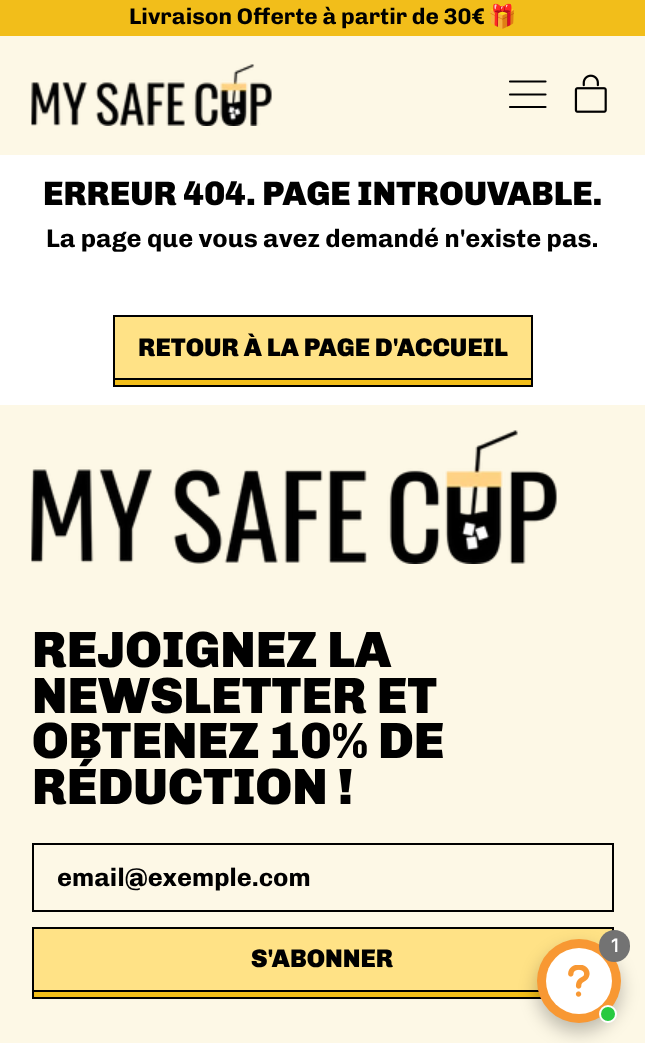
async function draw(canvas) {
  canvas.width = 645
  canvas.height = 1043
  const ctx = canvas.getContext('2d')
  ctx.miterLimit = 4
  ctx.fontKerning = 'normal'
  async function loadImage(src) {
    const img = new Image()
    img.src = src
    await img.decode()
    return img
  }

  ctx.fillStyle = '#fff'
  ctx.fillRect(0, 0, 645, 1043)
  ctx.fillStyle = '#f2be1a'
  ctx.fillRect(0, 0, 645, 36)
  ctx.font = 'bold 22.75px Chivo'
  ctx.fillStyle = '#000'
  ctx.fillText('Livraison Offerte à partir de 30€', 129, 24)
  ctx.font = 'bold 22.75px Noto Color Emoji'
  ctx.fillText('🎁', 488, 24)
  ctx.fillStyle = '#fdf8e6'
  ctx.fillRect(0, 36, 645, 119)
  ctx.drawImage(await loadImage('image0.png'), 31, 64, 241, 62)
  ctx.beginPath()
  ctx.moveTo(545.5, 107)
  ctx.lineTo(510, 107)
  ctx.moveTo(545.5, 94.5)
  ctx.lineTo(510, 94.5)
  ctx.moveTo(545.5, 81.5)
  ctx.lineTo(510, 81.5)
  ctx.strokeStyle = '#000'
  ctx.lineWidth = 2.2
  ctx.lineCap = 'round'
  ctx.lineJoin = 'round'
  ctx.stroke()
  ctx.drawImage(await loadImage('image1.png'), 574, 74, 33, 39)
  ctx.font = '900 34px Chivo'
  ctx.fillStyle = '#000'
  ctx.fillText('ERREUR 404. PAGE INTROUVABLE.', 43, 205)
  ctx.font = 'bold 25.5px Chivo'
  ctx.fillText('La page que vous avez demandé n\'existe pas.', 46, 247)
  ctx.fillStyle = '#f2be1a'
  ctx.fillRect(115, 380, 416, 5)
  ctx.lineWidth = 2
  ctx.lineJoin = 'miter'
  ctx.strokeRect(114, 324, 418, 62)
  ctx.fillStyle = '#ffe286'
  ctx.beginPath()
  ctx.rect(114, 316, 418, 63)
  ctx.fill()
  ctx.stroke()
  ctx.font = '900 25.5px Chivo'
  ctx.fillStyle = '#000'
  ctx.fillText('RETOUR À LA PAGE D\'ACCUEIL', 138, 356)
  ctx.fillStyle = '#fdf8e6'
  ctx.fillRect(0, 405, 645, 638)
  ctx.drawImage(await loadImage('image2.png'), 31, 430, 526, 134)
  ctx.font = '900 51px Chivo'
  ctx.fillStyle = '#000'
  ctx.fillText('REJOIGNEZ LA', 32, 667)
  ctx.fillText('NEWSLETTER ET', 32, 713)
  ctx.fillText('OBTENEZ 10% DE', 32, 758)
  ctx.fillText('RÉDUCTION !', 32, 804)
  ctx.strokeRect(33, 844, 580, 67)
  ctx.font = 'bold 25.5px Chivo'
  ctx.fillText('email@exemple.com', 57, 886)
  ctx.fillStyle = '#f2be1a'
  ctx.fillRect(34, 992, 507, 5)
  ctx.strokeRect(33, 936, 580, 62)
  ctx.fillStyle = '#ffe286'
  ctx.beginPath()
  ctx.rect(33, 928, 580, 63)
  ctx.fill()
  ctx.stroke()
  ctx.font = '900 25.5px Chivo'
  ctx.fillStyle = '#000'
  ctx.fillText('S\'ABONNER', 251, 967)
  ctx.fillStyle = '#00000040'
  ctx.filter = 'blur(9px)'
  ctx.beginPath()
  ctx.roundRect(537, 948, 84, 84, 42)
  ctx.fill()
  ctx.filter = 'none'
  ctx.fillStyle = '#f89833'
  ctx.beginPath()
  ctx.arc(579, 981, 42, 0, 2 * Math.PI)
  ctx.fill()
  ctx.fillStyle = '#fff'
  ctx.beginPath()
  ctx.arc(579, 981, 33, 0, 2 * Math.PI)
  ctx.fill()
  ctx.drawImage(await loadImage('image3.png'), 568, 965, 22, 32)
  ctx.fillStyle = '#27ca40'
  ctx.beginPath()
  ctx.arc(608, 1014, 8, 0, 2 * Math.PI)
  ctx.fill()
  ctx.strokeStyle = '#fff'
  ctx.stroke()
  ctx.fillStyle = '#737373'
  ctx.beginPath()
  ctx.roundRect(599, 930, 31, 32, 15.5)
  ctx.fill()
  ctx.font = 'bold 18px Inter'
  ctx.fillStyle = '#fff'
  ctx.fillText('1', 611, 952)
}

draw(document.querySelector('canvas'))
